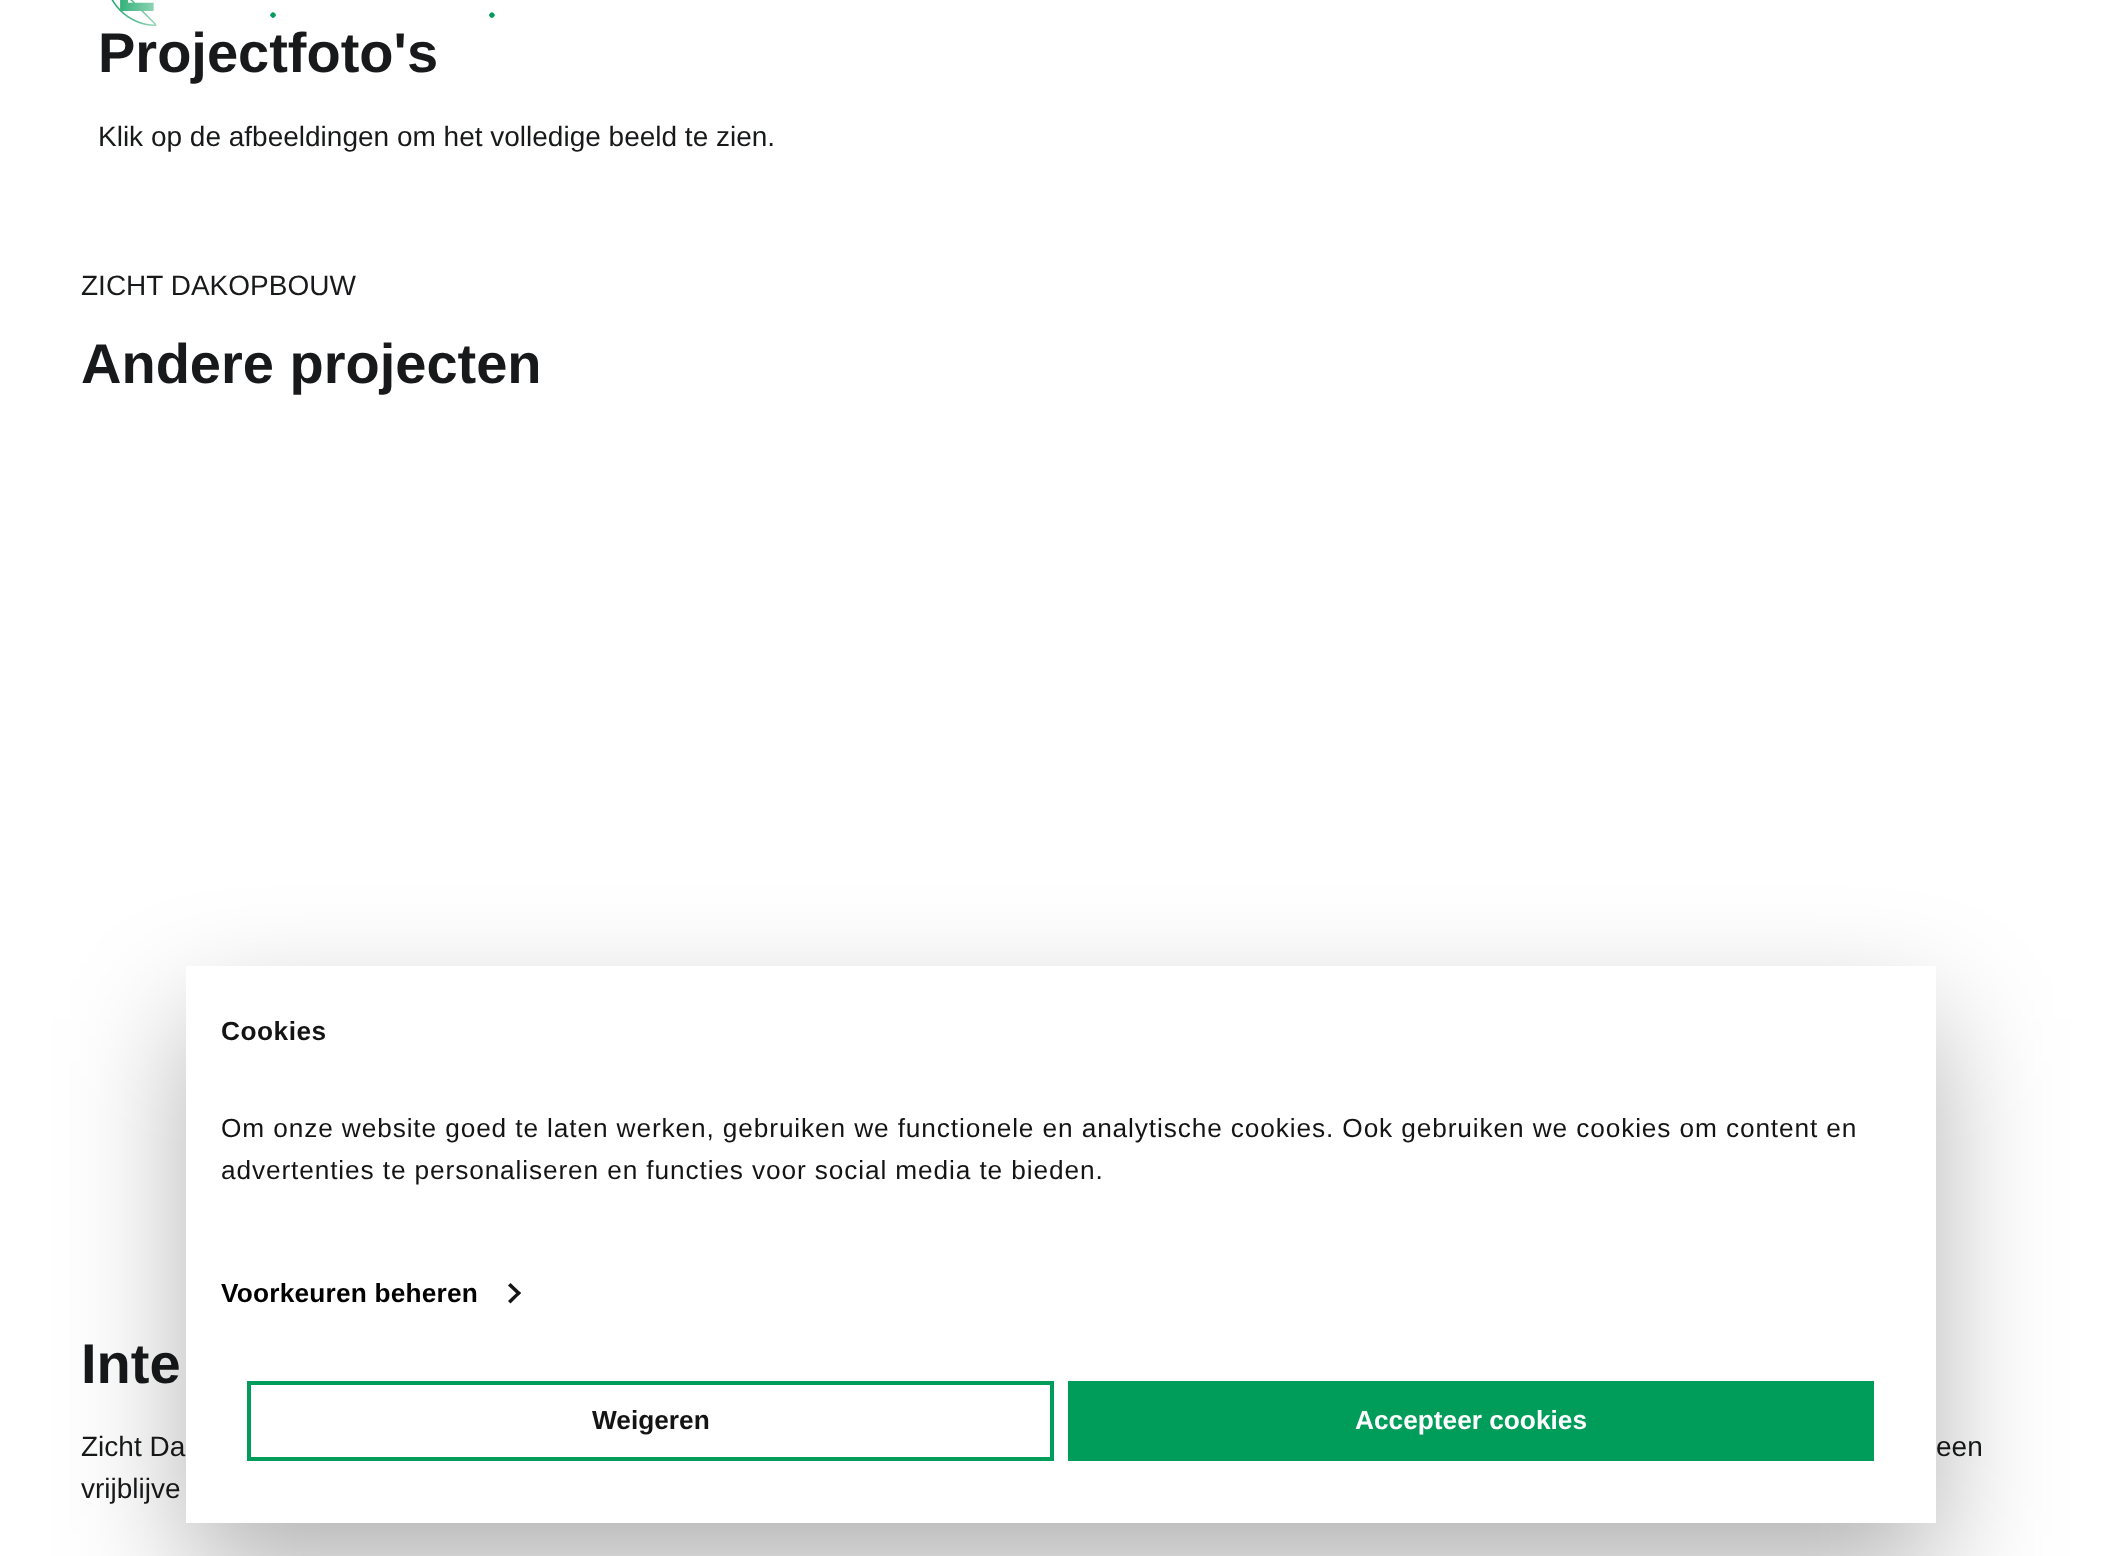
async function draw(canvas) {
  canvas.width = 2121
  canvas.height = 1556
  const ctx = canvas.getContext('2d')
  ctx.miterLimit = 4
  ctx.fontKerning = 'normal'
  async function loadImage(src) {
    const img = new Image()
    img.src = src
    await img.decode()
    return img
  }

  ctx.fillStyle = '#fff'
  ctx.fillRect(0, 0, 2121, 1556)
  ctx.drawImage(await loadImage('image0.png'), 111, 0, 384, 26)
  ctx.font = 'bold 56px Liberation Sans'
  ctx.fillStyle = '#18191a'
  ctx.fillText('Projectfoto\'s', 98, 72)
  ctx.font = '28px Liberation Sans'
  ctx.fillText('Klik op de afbeeldingen om het volledige beeld te zien.', 98, 146)
  ctx.fillText('ZICHT DAKOPBOUW', 81, 295)
  ctx.font = 'bold 56px Liberation Sans'
  ctx.fillText('Andere projecten', 81, 383)
  ctx.fillText('Inte', 81, 1383)
  ctx.font = '28px Liberation Sans'
  ctx.fillText('Zicht Da', 81, 1456)
  ctx.fillText('een', 1936, 1456)
  ctx.fillText('vrijblijve', 81, 1498)
  ctx.fillStyle = '#0000004d'
  ctx.filter = 'blur(61px)'
  ctx.beginPath()
  ctx.rect(186, 1019, 1750, 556)
  ctx.fill()
  ctx.filter = 'none'
  ctx.fillStyle = '#fff'
  ctx.fillRect(186, 966, 1750, 557)
  ctx.letterSpacing = '0.5px'
  ctx.font = 'bold 26.25px Liberation Sans'
  ctx.fillStyle = '#141414'
  ctx.fillText('Cookies', 221, 1040)
  ctx.letterSpacing = '0.88px'
  ctx.font = '26.25px Liberation Sans'
  ctx.fillText('Om onze website goed te laten werken, gebruiken we functionele en analytische cookies. Ook gebruiken we cookies om content en', 221, 1137)
  ctx.fillText('advertenties te personaliseren en functies voor social media te bieden.', 221, 1179)
  ctx.letterSpacing = '0.2px'
  ctx.font = 'bold 26.25px Liberation Sans'
  ctx.fillStyle = '#000'
  ctx.fillText('Voorkeuren beheren', 221, 1302)
  ctx.fillStyle = '#141414'
  ctx.beginPath()
  ctx.moveTo(510.5, 1283)
  ctx.lineTo(521, 1293)
  ctx.lineTo(518.5, 1295.5)
  ctx.lineTo(508, 1285.5)
  ctx.closePath()
  ctx.fill()
  ctx.beginPath()
  ctx.moveTo(518.5, 1291)
  ctx.lineTo(521, 1293)
  ctx.lineTo(510.5, 1303.5)
  ctx.lineTo(508, 1301)
  ctx.closePath()
  ctx.fill()
  ctx.strokeStyle = '#009c59'
  ctx.lineWidth = 4
  ctx.strokeRect(249, 1383, 803, 76)
  ctx.letterSpacing = '0px'
  ctx.fillText('Weigeren', 592, 1429)
  ctx.fillStyle = '#009c59'
  ctx.fillRect(1068, 1381, 806, 80)
  ctx.fillStyle = '#fff'
  ctx.fillText('Accepteer cookies', 1355, 1429)
}

draw(document.querySelector('canvas'))
